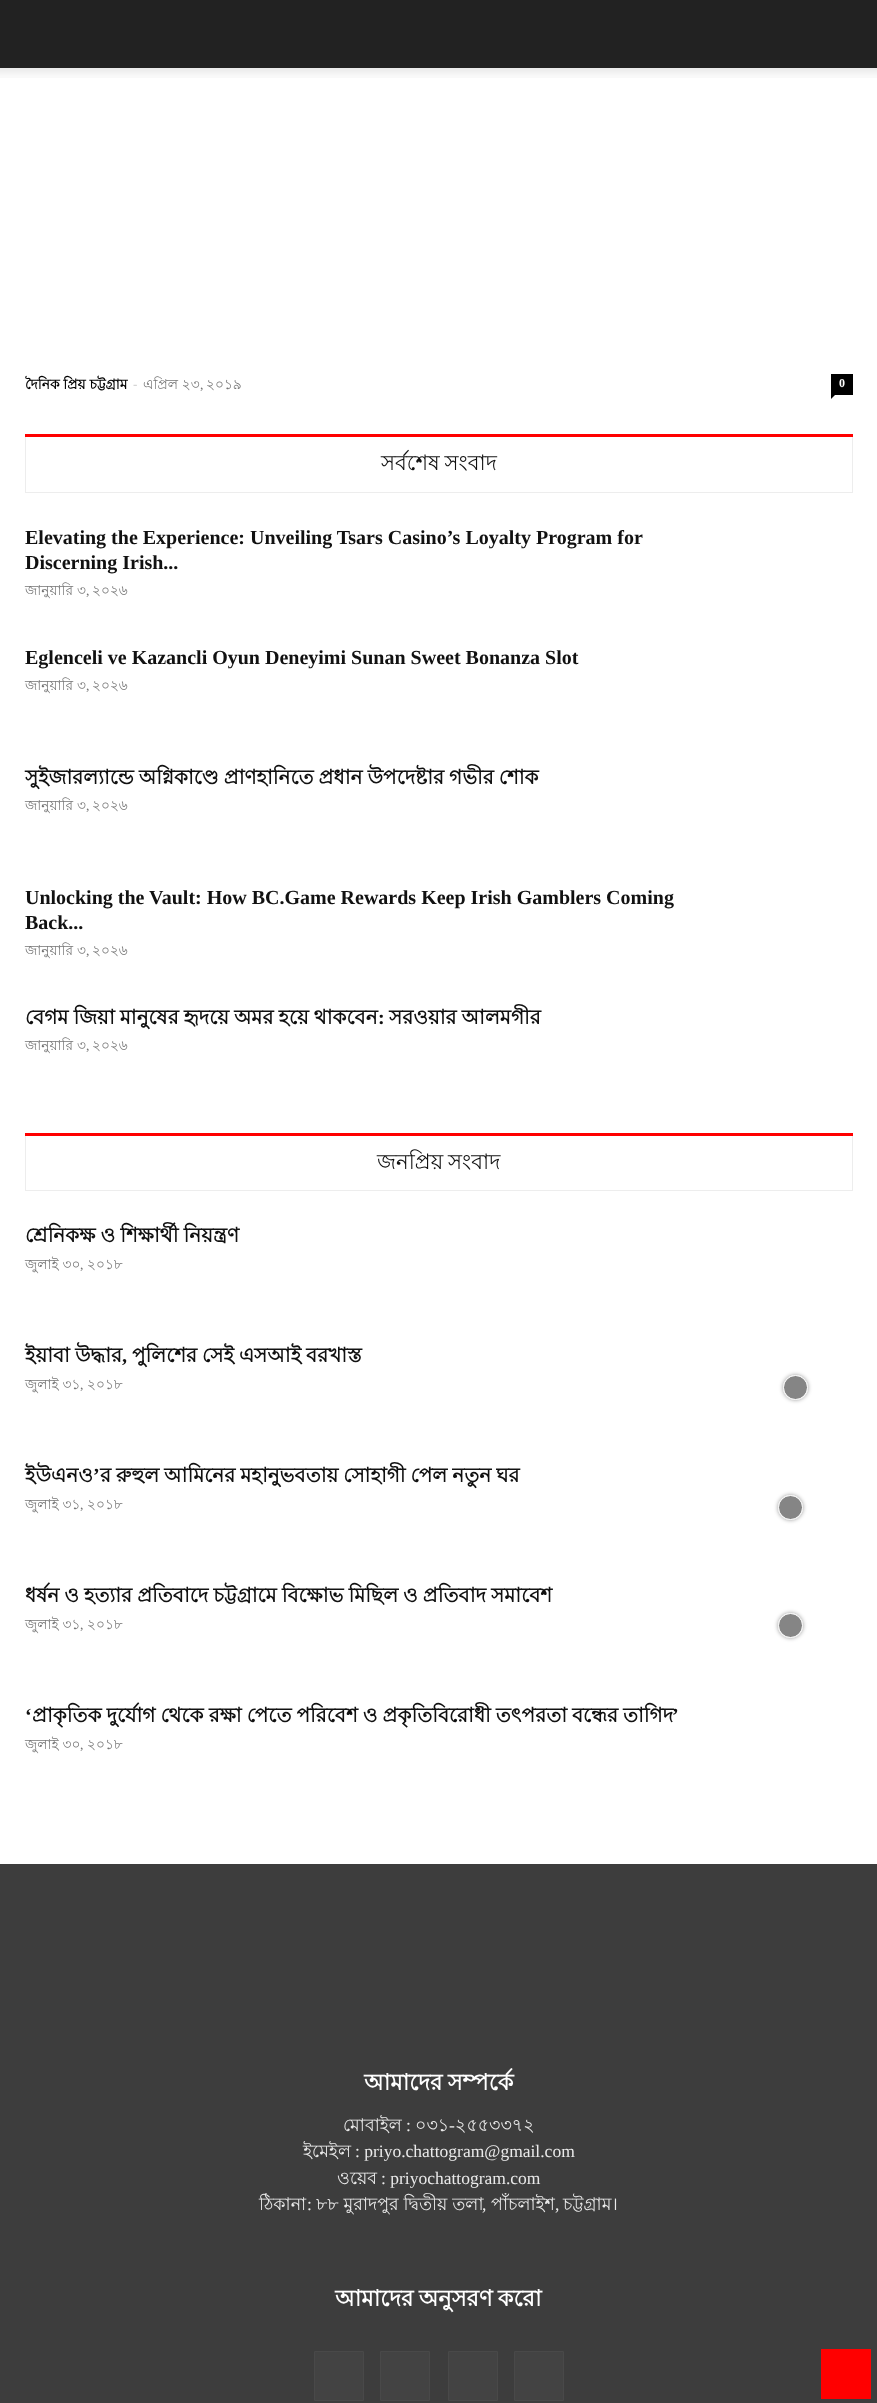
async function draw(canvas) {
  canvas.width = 877
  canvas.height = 2403
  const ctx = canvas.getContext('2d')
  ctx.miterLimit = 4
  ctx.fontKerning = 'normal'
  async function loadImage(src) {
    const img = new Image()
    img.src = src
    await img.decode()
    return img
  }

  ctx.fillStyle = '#fff'
  ctx.fillRect(0, 0, 877, 2403)
  ctx.fillStyle = '#222'
  ctx.fillRect(0, 0, 877, 68)
  ctx.drawImage(await loadImage('image0.png'), 0, 68, 877, 10)
  ctx.font = 'bold 13.75px Lohit Bengali'
  ctx.fillStyle = '#000'
  ctx.fillText('দৈনিক প্রিয় চট্টগ্রাম', 25, 389)
  ctx.font = '13.75px Open Sans'
  ctx.fillStyle = '#ccc'
  ctx.fillText('-', 133, 389)
  ctx.font = '13.75px Lohit Bengali'
  ctx.fillStyle = '#767676'
  ctx.fillText('এপ্রিল ২৩', 143, 389)
  ctx.font = '13.75px Liberation Serif'
  ctx.fillText(',', 200, 389)
  ctx.font = '13.75px Lohit Bengali'
  ctx.fillText('২০১৯', 206, 389)
  ctx.fillStyle = '#000'
  ctx.fillRect(831, 374, 22, 21)
  ctx.font = 'bold 12px Liberation Serif'
  ctx.fillStyle = '#fff'
  ctx.fillText('0', 839, 387)
  ctx.fillStyle = '#000'
  ctx.beginPath()
  ctx.moveTo(831, 395)
  ctx.lineTo(835, 395)
  ctx.lineTo(831, 399)
  ctx.closePath()
  ctx.fill()
  ctx.strokeStyle = '#ededed'
  ctx.strokeRect(25.5, 434.5, 827, 58)
  ctx.fillStyle = '#f00'
  ctx.fillRect(25, 434, 828, 3)
  ctx.wordSpacing = '-1px'
  ctx.font = '21.25px Lohit Bengali'
  ctx.fillStyle = '#111'
  ctx.fillText('সর্বশেষ সংবাদ', 381, 470)
  ctx.wordSpacing = '0px'
  ctx.font = 'bold 20px Liberation Serif'
  ctx.fillText('Elevating the Experience: Unveiling Tsars Casino’s Loyalty Program for', 25, 544)
  ctx.fillText('Discerning Irish...', 25, 569)
  ctx.font = '13.75px Lohit Bengali'
  ctx.fillStyle = '#767676'
  ctx.fillText('জানুয়ারি ৩', 25, 595)
  ctx.font = '13.75px Liberation Serif'
  ctx.fillText(',', 86, 595)
  ctx.font = '13.75px Lohit Bengali'
  ctx.fillText('২০২৬', 92, 595)
  ctx.font = 'bold 20px Liberation Serif'
  ctx.fillStyle = '#111'
  ctx.fillText('Eglenceli ve Kazancli Oyun Deneyimi Sunan Sweet Bonanza Slot', 25, 664)
  ctx.font = '13.75px Lohit Bengali'
  ctx.fillStyle = '#767676'
  ctx.fillText('জানুয়ারি ৩', 25, 690)
  ctx.font = '13.75px Liberation Serif'
  ctx.fillText(',', 86, 690)
  ctx.font = '13.75px Lohit Bengali'
  ctx.fillText('২০২৬', 92, 690)
  ctx.wordSpacing = '-0.5px'
  ctx.font = 'bold 20px Lohit Bengali'
  ctx.fillStyle = '#111'
  ctx.fillText('সুইজারল্যান্ডে অগ্নিকাণ্ডে প্রাণহানিতে প্রধান উপদেষ্টার গভীর শোক', 25, 784)
  ctx.wordSpacing = '0px'
  ctx.font = '13.75px Lohit Bengali'
  ctx.fillStyle = '#767676'
  ctx.fillText('জানুয়ারি ৩', 25, 810)
  ctx.font = '13.75px Liberation Serif'
  ctx.fillText(',', 86, 810)
  ctx.font = '13.75px Lohit Bengali'
  ctx.fillText('২০২৬', 92, 810)
  ctx.font = 'bold 20px Liberation Serif'
  ctx.fillStyle = '#111'
  ctx.fillText('Unlocking the Vault: How BC.Game Rewards Keep Irish Gamblers Coming', 25, 904)
  ctx.fillText('Back...', 25, 929)
  ctx.font = '13.75px Lohit Bengali'
  ctx.fillStyle = '#767676'
  ctx.fillText('জানুয়ারি ৩', 25, 955)
  ctx.font = '13.75px Liberation Serif'
  ctx.fillText(',', 86, 955)
  ctx.font = '13.75px Lohit Bengali'
  ctx.fillText('২০২৬', 92, 955)
  ctx.wordSpacing = '-0.5px'
  ctx.font = 'bold 20px Lohit Bengali'
  ctx.fillStyle = '#111'
  ctx.fillText('বেগম জিয়া মানুষের হৃদয়ে অমর হয়ে থাকবেন', 25, 1024)
  ctx.wordSpacing = '0px'
  ctx.font = 'bold 20px Liberation Serif'
  ctx.fillText(':', 378, 1024)
  ctx.wordSpacing = '-0.5px'
  ctx.font = 'bold 20px Lohit Bengali'
  ctx.fillText('সরওয়ার আলমগীর', 389, 1024)
  ctx.wordSpacing = '0px'
  ctx.font = '13.75px Lohit Bengali'
  ctx.fillStyle = '#767676'
  ctx.fillText('জানুয়ারি ৩', 25, 1050)
  ctx.font = '13.75px Liberation Serif'
  ctx.fillText(',', 86, 1050)
  ctx.font = '13.75px Lohit Bengali'
  ctx.fillText('২০২৬', 92, 1050)
  ctx.strokeRect(25.5, 1133.5, 827, 57)
  ctx.fillStyle = '#f00'
  ctx.fillRect(25, 1133, 828, 3)
  ctx.wordSpacing = '-1px'
  ctx.font = '21.25px Lohit Bengali'
  ctx.fillStyle = '#111'
  ctx.fillText('জনপ্রিয় সংবাদ', 377, 1169)
  ctx.wordSpacing = '-0.5px'
  ctx.font = 'bold 20px Lohit Bengali'
  ctx.fillText('শ্রেনিকক্ষ ও শিক্ষার্থী নিয়ন্ত্রণ', 25, 1242)
  ctx.wordSpacing = '0px'
  ctx.font = '13.75px Lohit Bengali'
  ctx.fillStyle = '#767676'
  ctx.fillText('জুলাই ৩০', 25, 1269)
  ctx.font = '13.75px Liberation Serif'
  ctx.fillText(',', 80, 1269)
  ctx.font = '13.75px Lohit Bengali'
  ctx.fillText('২০১৮', 87, 1269)
  ctx.wordSpacing = '-0.5px'
  ctx.font = 'bold 20px Lohit Bengali'
  ctx.fillStyle = '#111'
  ctx.fillText('ইয়াবা উদ্ধার', 25, 1362)
  ctx.wordSpacing = '0px'
  ctx.font = 'bold 20px Liberation Serif'
  ctx.fillText(',', 122, 1362)
  ctx.wordSpacing = '-0.5px'
  ctx.font = 'bold 20px Lohit Bengali'
  ctx.fillText('পুলিশের সেই এসআই বরখাস্ত', 132, 1362)
  ctx.wordSpacing = '0px'
  ctx.font = '13.75px Lohit Bengali'
  ctx.fillStyle = '#767676'
  ctx.fillText('জুলাই ৩১', 25, 1389)
  ctx.font = '13.75px Liberation Serif'
  ctx.fillText(',', 80, 1389)
  ctx.font = '13.75px Lohit Bengali'
  ctx.fillText('২০১৮', 87, 1389)
  ctx.save()
  ctx.beginPath()
  ctx.moveTo(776, 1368)
  ctx.lineTo(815, 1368)
  ctx.lineTo(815, 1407)
  ctx.lineTo(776, 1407)
  ctx.closePath()
  ctx.moveTo(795.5, 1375)
  ctx.bezierCurveTo(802.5, 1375, 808, 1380.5, 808, 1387.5)
  ctx.bezierCurveTo(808, 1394.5, 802.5, 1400, 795.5, 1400)
  ctx.bezierCurveTo(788.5, 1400, 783, 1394.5, 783, 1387.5)
  ctx.bezierCurveTo(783, 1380.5, 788.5, 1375, 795.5, 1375)
  ctx.closePath()
  ctx.clip('evenodd')
  ctx.fillStyle = '#00000066'
  ctx.filter = 'blur(2px)'
  ctx.beginPath()
  ctx.roundRect(783, 1375, 25, 25, 12.5)
  ctx.fill()
  ctx.filter = 'none'
  ctx.restore()
  ctx.fillStyle = '#0000007a'
  ctx.beginPath()
  ctx.arc(795.5, 1387.5, 12, 0, 2 * Math.PI)
  ctx.fill()
  ctx.strokeStyle = '#fff'
  ctx.stroke()
  ctx.font = 'bold 20px Lohit Bengali'
  ctx.fillStyle = '#111'
  ctx.fillText('ইউএনও', 25, 1482)
  ctx.font = 'bold 20px Liberation Serif'
  ctx.fillText('’', 93, 1482)
  ctx.wordSpacing = '-0.5px'
  ctx.font = 'bold 20px Lohit Bengali'
  ctx.fillText('র রুহুল আমিনের মহানুভবতায় সোহাগী পেল নতুন ঘর', 100, 1482)
  ctx.wordSpacing = '0px'
  ctx.font = '13.75px Lohit Bengali'
  ctx.fillStyle = '#767676'
  ctx.fillText('জুলাই ৩১', 25, 1509)
  ctx.font = '13.75px Liberation Serif'
  ctx.fillText(',', 80, 1509)
  ctx.font = '13.75px Lohit Bengali'
  ctx.fillText('২০১৮', 87, 1509)
  ctx.save()
  ctx.beginPath()
  ctx.moveTo(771, 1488)
  ctx.lineTo(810, 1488)
  ctx.lineTo(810, 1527)
  ctx.lineTo(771, 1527)
  ctx.closePath()
  ctx.moveTo(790.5, 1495)
  ctx.bezierCurveTo(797.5, 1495, 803, 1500.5, 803, 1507.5)
  ctx.bezierCurveTo(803, 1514.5, 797.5, 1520, 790.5, 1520)
  ctx.bezierCurveTo(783.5, 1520, 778, 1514.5, 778, 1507.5)
  ctx.bezierCurveTo(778, 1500.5, 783.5, 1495, 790.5, 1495)
  ctx.closePath()
  ctx.clip('evenodd')
  ctx.fillStyle = '#00000066'
  ctx.filter = 'blur(2px)'
  ctx.beginPath()
  ctx.roundRect(778, 1495, 25, 25, 12.5)
  ctx.fill()
  ctx.filter = 'none'
  ctx.restore()
  ctx.fillStyle = '#0000007a'
  ctx.beginPath()
  ctx.arc(790.5, 1507.5, 12, 0, 2 * Math.PI)
  ctx.fill()
  ctx.stroke()
  ctx.wordSpacing = '-0.5px'
  ctx.font = 'bold 20px Lohit Bengali'
  ctx.fillStyle = '#111'
  ctx.fillText('ধর্ষন ও হত্যার প্রতিবাদে চট্টগ্রামে বিক্ষোভ মিছিল ও প্রতিবাদ সমাবেশ', 25, 1602)
  ctx.wordSpacing = '0px'
  ctx.font = '13.75px Lohit Bengali'
  ctx.fillStyle = '#767676'
  ctx.fillText('জুলাই ৩১', 25, 1629)
  ctx.font = '13.75px Liberation Serif'
  ctx.fillText(',', 80, 1629)
  ctx.font = '13.75px Lohit Bengali'
  ctx.fillText('২০১৮', 87, 1629)
  ctx.save()
  ctx.beginPath()
  ctx.moveTo(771, 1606)
  ctx.lineTo(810, 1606)
  ctx.lineTo(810, 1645)
  ctx.lineTo(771, 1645)
  ctx.closePath()
  ctx.moveTo(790.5, 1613)
  ctx.bezierCurveTo(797.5, 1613, 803, 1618.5, 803, 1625.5)
  ctx.bezierCurveTo(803, 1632.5, 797.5, 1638, 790.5, 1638)
  ctx.bezierCurveTo(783.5, 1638, 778, 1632.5, 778, 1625.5)
  ctx.bezierCurveTo(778, 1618.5, 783.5, 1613, 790.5, 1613)
  ctx.closePath()
  ctx.clip('evenodd')
  ctx.fillStyle = '#00000066'
  ctx.filter = 'blur(2px)'
  ctx.beginPath()
  ctx.roundRect(778, 1613, 25, 25, 12.5)
  ctx.fill()
  ctx.filter = 'none'
  ctx.restore()
  ctx.fillStyle = '#0000007a'
  ctx.beginPath()
  ctx.arc(790.5, 1625.5, 12, 0, 2 * Math.PI)
  ctx.fill()
  ctx.stroke()
  ctx.font = 'bold 20px Liberation Serif'
  ctx.fillStyle = '#111'
  ctx.fillText('‘', 25, 1722)
  ctx.wordSpacing = '-0.5px'
  ctx.font = 'bold 20px Lohit Bengali'
  ctx.fillText('প্রাকৃতিক দুর্যোগ থেকে রক্ষা পেতে পরিবেশ ও প্রকৃতিবিরোধী তৎপরতা বন্ধের তাগিদ', 32, 1722)
  ctx.wordSpacing = '0px'
  ctx.font = 'bold 20px Liberation Serif'
  ctx.fillText('’', 672, 1722)
  ctx.font = '13.75px Lohit Bengali'
  ctx.fillStyle = '#767676'
  ctx.fillText('জুলাই ৩০', 25, 1749)
  ctx.font = '13.75px Liberation Serif'
  ctx.fillText(',', 80, 1749)
  ctx.font = '13.75px Lohit Bengali'
  ctx.fillText('২০১৮', 87, 1749)
  ctx.fillStyle = '#3d3d3d'
  ctx.fillRect(0, 1864, 877, 539)
  ctx.wordSpacing = '-1px'
  ctx.font = 'bold 22.5px Lohit Bengali'
  ctx.fillStyle = '#fff'
  ctx.fillText('আমাদের সম্পর্কে', 364, 2090)
  ctx.wordSpacing = '0px'
  ctx.font = '17.5px Lohit Bengali'
  ctx.fillStyle = '#eaeaea'
  ctx.fillText('মোবাইল', 343, 2131)
  ctx.font = '17.5px Liberation Serif'
  ctx.fillText(':', 406, 2131)
  ctx.font = '17.5px Lohit Bengali'
  ctx.fillText('০৩১', 415, 2131)
  ctx.font = '17.5px Liberation Serif'
  ctx.fillText('-', 449, 2131)
  ctx.font = '17.5px Lohit Bengali'
  ctx.fillText('২৫৫৩৩৭২', 455, 2131)
  ctx.fillText('ইমেইল', 303, 2157)
  ctx.font = '17.5px Liberation Serif'
  ctx.fillText(': priyo.chattogram@gmail.com', 355, 2157)
  ctx.font = '17.5px Lohit Bengali'
  ctx.fillText('ওয়েব', 337, 2184)
  ctx.font = '17.5px Liberation Serif'
  ctx.fillText(': priyochattogram.com', 381, 2184)
  ctx.font = '17.5px Lohit Bengali'
  ctx.fillText('ঠিকানা', 259, 2210)
  ctx.font = '17.5px Liberation Serif'
  ctx.fillText(':', 307, 2210)
  ctx.font = '17.5px Lohit Bengali'
  ctx.fillText('৮৮ মুরাদপুর দ্বিতীয় তলা', 316, 2210)
  ctx.font = '17.5px Liberation Serif'
  ctx.fillText(',', 482, 2210)
  ctx.font = '17.5px Lohit Bengali'
  ctx.fillText('পাঁচলাইশ', 491, 2210)
  ctx.fillText('চট্টগ্রাম।', 563, 2210)
  ctx.font = '17.5px Liberation Serif'
  ctx.fillText(',', 555, 2210)
  ctx.wordSpacing = '-1px'
  ctx.font = 'bold 22.5px Lohit Bengali'
  ctx.fillStyle = '#fff'
  ctx.fillText('আমাদের অনুসরণ করো', 335, 2306)
  ctx.fillStyle = '#434343'
  ctx.beginPath()
  ctx.rect(314.5, 2351.5, 49, 49)
  ctx.fill()
  ctx.strokeStyle = '#494949'
  ctx.stroke()
  ctx.beginPath()
  ctx.rect(380.5, 2351.5, 49, 49)
  ctx.fill()
  ctx.stroke()
  ctx.beginPath()
  ctx.rect(448.5, 2351.5, 49, 49)
  ctx.fill()
  ctx.stroke()
  ctx.beginPath()
  ctx.rect(514.5, 2351.5, 49, 49)
  ctx.fill()
  ctx.stroke()
  ctx.fillStyle = '#f00'
  ctx.fillRect(821, 2349, 50, 50)
}

draw(document.querySelector('canvas'))
